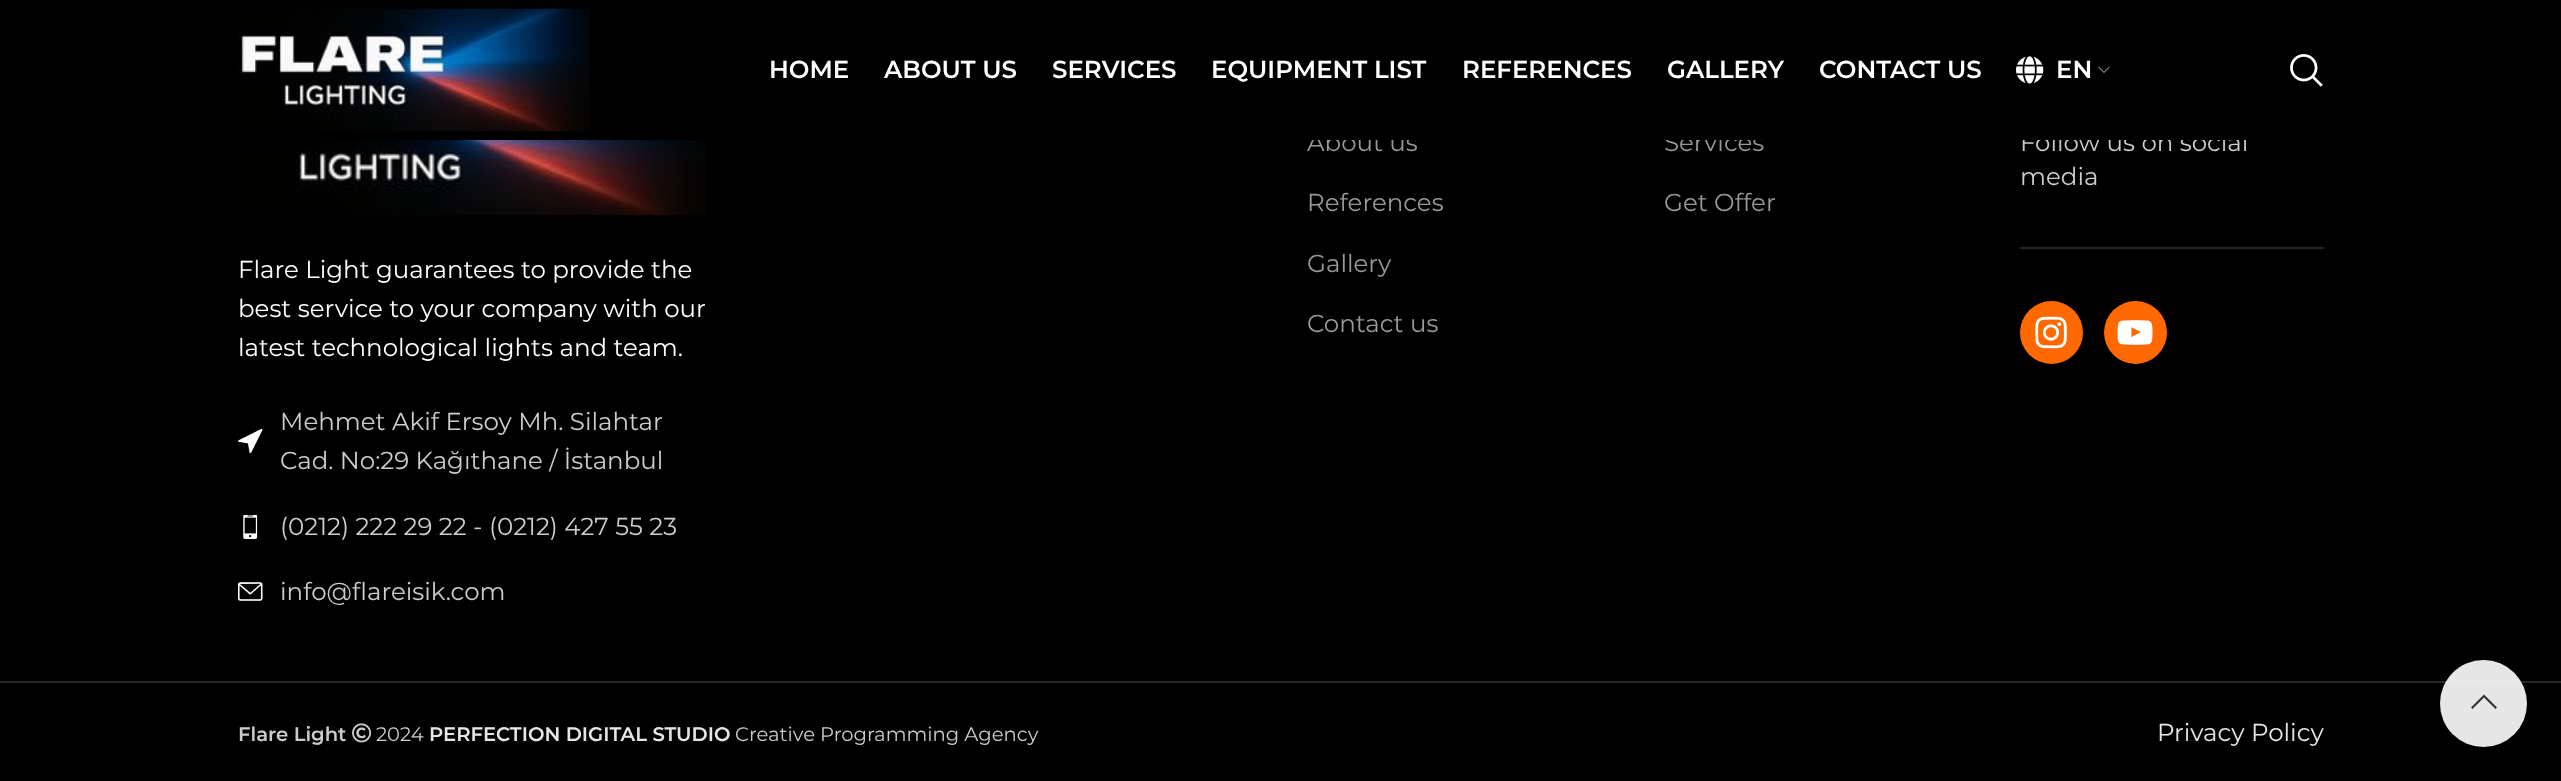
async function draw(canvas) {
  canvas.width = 2561
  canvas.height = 781
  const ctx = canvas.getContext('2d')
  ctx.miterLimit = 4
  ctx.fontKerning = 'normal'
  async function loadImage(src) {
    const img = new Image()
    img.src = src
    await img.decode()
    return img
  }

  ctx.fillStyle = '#000'
  ctx.fillRect(0, 0, 2561, 781)
  ctx.drawImage(await loadImage('image6.png'), 238, 140, 467, 76)
  ctx.fillStyle = '#0000001a'
  ctx.filter = 'blur(2.5px)'
  ctx.beginPath()
  ctx.rect(0, 2, 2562, 140)
  ctx.fill()
  ctx.filter = 'none'
  ctx.font = '24.5px Montserrat'
  ctx.fillStyle = '#999'
  ctx.fillText('About us', 1307, 151)
  ctx.fillText('Services', 1664, 151)
  ctx.fillStyle = '#ccc'
  ctx.fillText('Follow us on social', 2020, 151)
  ctx.fillStyle = '#000'
  ctx.fillRect(1312, 132, 934, 8)
  ctx.drawImage(await loadImage('image0.png'), 238, 8, 352, 124)
  ctx.font = '600 24.5px Montserrat'
  ctx.fillStyle = '#fff'
  ctx.fillText('HOME', 769, 78)
  ctx.fillText('ABOUT US', 884, 78)
  ctx.fillText('SERVICES', 1052, 78)
  ctx.fillText('EQUIPMENT LIST', 1211, 78)
  ctx.fillText('REFERENCES', 1462, 78)
  ctx.fillText('GALLERY', 1667, 78)
  ctx.fillText('CONTACT US', 1819, 78)
  ctx.drawImage(await loadImage('image1.png'), 2016, 56, 28, 28)
  ctx.fillText('EN', 2056, 78)
  ctx.drawImage(await loadImage('image2.png'), 2098, 66, 12, 7)
  ctx.drawImage(await loadImage('image3.png'), 2290, 54, 33, 33)
  ctx.font = '24.5px Montserrat'
  ctx.fillStyle = '#999'
  ctx.fillText('References', 1307, 211)
  ctx.fillText('Gallery', 1307, 272)
  ctx.fillText('Contact us', 1307, 332)
  ctx.fillText('Get Offer', 1664, 211)
  ctx.fillStyle = '#262626'
  ctx.fillRect(2020, 247, 304, 2)
  ctx.fillStyle = '#ccc'
  ctx.fillText('media', 2020, 185)
  ctx.fillStyle = '#ff6900'
  ctx.beginPath()
  ctx.arc(2051.5, 332.5, 31.5, 0, 2 * Math.PI)
  ctx.fill()
  ctx.drawImage(await loadImage('image4.png'), 2035, 316, 32, 33)
  ctx.beginPath()
  ctx.arc(2135.5, 332.5, 31.5, 0, 2 * Math.PI)
  ctx.fill()
  ctx.drawImage(await loadImage('image5.png'), 2117, 320, 36, 25)
  ctx.fillStyle = '#fff'
  ctx.fillText('Flare Light guarantees to provide the', 238, 278)
  ctx.fillText('best service to your company with our', 238, 317)
  ctx.fillText('latest technological lights and team.', 238, 356)
  ctx.drawImage(await loadImage('image7.png'), 238, 429, 25, 24)
  ctx.fillStyle = '#ccc'
  ctx.fillText('Mehmet Akif Ersoy Mh. Silahtar', 280, 430)
  ctx.fillText('Cad. No:29 Kağıthane / İstanbul', 280, 469)
  ctx.drawImage(await loadImage('image8.png'), 243, 515, 15, 24)
  ctx.fillText('(0212) 222 29 22 - (0212) 427 55 23', 280, 535)
  ctx.drawImage(await loadImage('image9.png'), 238, 582, 25, 19)
  ctx.fillText('info@flareisik.com', 280, 600)
  ctx.fillStyle = '#262626'
  ctx.fillRect(0, 681, 2561, 2)
  ctx.font = '600 19.6px Montserrat'
  ctx.fillStyle = '#ccc'
  ctx.fillText('Flare Light', 238, 741)
  ctx.drawImage(await loadImage('image10.png'), 352, 723, 19, 20)
  ctx.font = '19.6px Montserrat'
  ctx.fillText('2024', 376, 741)
  ctx.font = '600 19.6px Montserrat'
  ctx.fillStyle = '#e6e6e6'
  ctx.fillText('PERFECTION DIGITAL STUDIO', 429, 741)
  ctx.font = '19.6px Montserrat'
  ctx.fillStyle = '#ccc'
  ctx.fillText('Creative Programming Agency', 735, 741)
  ctx.font = '24.5px Montserrat'
  ctx.fillStyle = '#e6e6e6'
  ctx.fillText('Privacy Policy', 2157, 741)
  ctx.fillStyle = '#ffffffe6'
  ctx.beginPath()
  ctx.arc(2483.5, 703.5, 43.5, 0, 2 * Math.PI)
  ctx.fill()
  ctx.fillStyle = '#333'
  ctx.beginPath()
  ctx.moveTo(2495.5, 709)
  ctx.lineTo(2497, 707.5)
  ctx.lineTo(2484, 694.5)
  ctx.lineTo(2471, 707.5)
  ctx.lineTo(2472.5, 709)
  ctx.lineTo(2484, 697.5)
  ctx.closePath()
  ctx.fill()
}

draw(document.querySelector('canvas'))
